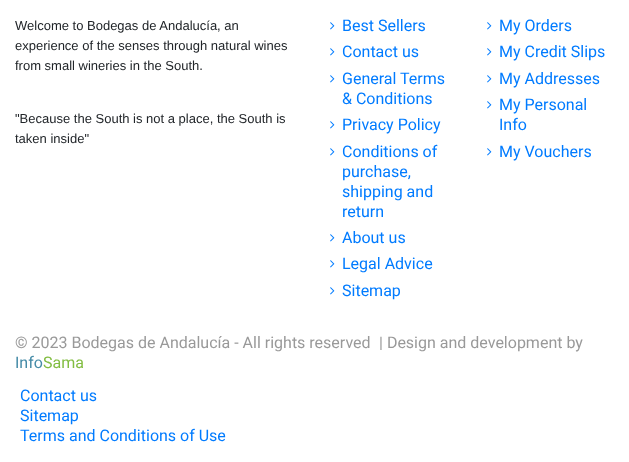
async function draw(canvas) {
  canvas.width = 629
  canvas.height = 462
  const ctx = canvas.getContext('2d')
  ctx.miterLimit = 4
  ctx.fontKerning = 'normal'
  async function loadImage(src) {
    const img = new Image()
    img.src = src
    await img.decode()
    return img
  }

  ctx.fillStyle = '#fff'
  ctx.fillRect(0, 0, 629, 462)
  ctx.font = '13px Liberation Sans'
  ctx.fillStyle = '#212529'
  ctx.fillText('Welcome to Bodegas de Andalucía, an', 15, 30)
  ctx.fillText('experience of the senses through natural wines', 15, 50)
  ctx.fillText('from small wineries in the South.', 15, 70)
  ctx.fillText('"Because the South is not a place, the South is', 15, 123)
  ctx.fillText('taken inside"', 15, 143)
  ctx.drawImage(await loadImage('image0.png'), 330, 22, 5, 8)
  ctx.font = '16px Roboto'
  ctx.fillStyle = '#007bff'
  ctx.fillText('Best Sellers', 342, 31)
  ctx.drawImage(await loadImage('image0.png'), 330, 48, 5, 8)
  ctx.fillText('Contact us', 342, 57)
  ctx.drawImage(await loadImage('image0.png'), 330, 75, 5, 8)
  ctx.fillText('General Terms', 342, 84)
  ctx.fillText('& Conditions', 342, 104)
  ctx.drawImage(await loadImage('image0.png'), 330, 121, 5, 8)
  ctx.fillText('Privacy Policy', 342, 130)
  ctx.drawImage(await loadImage('image0.png'), 330, 148, 5, 8)
  ctx.fillText('Conditions of', 342, 157)
  ctx.fillText('purchase,', 342, 177)
  ctx.fillText('shipping and', 342, 197)
  ctx.fillText('return', 342, 217)
  ctx.drawImage(await loadImage('image0.png'), 330, 234, 5, 8)
  ctx.fillText('About us', 342, 243)
  ctx.drawImage(await loadImage('image0.png'), 330, 260, 5, 8)
  ctx.fillText('Legal Advice', 342, 269)
  ctx.drawImage(await loadImage('image0.png'), 330, 287, 5, 8)
  ctx.fillText('Sitemap', 342, 296)
  ctx.drawImage(await loadImage('image0.png'), 487, 22, 5, 8)
  ctx.fillText('My Orders', 499, 31)
  ctx.drawImage(await loadImage('image0.png'), 487, 48, 5, 8)
  ctx.fillText('My Credit Slips', 499, 57)
  ctx.drawImage(await loadImage('image0.png'), 487, 75, 5, 8)
  ctx.fillText('My Addresses', 499, 84)
  ctx.drawImage(await loadImage('image0.png'), 487, 101, 5, 8)
  ctx.fillText('My Personal', 499, 110)
  ctx.fillText('Info', 499, 130)
  ctx.drawImage(await loadImage('image0.png'), 487, 148, 5, 8)
  ctx.fillText('My Vouchers', 499, 157)
  ctx.fillStyle = '#999'
  ctx.fillText('© 2023 Bodegas de Andalucía - All rights reserved', 15, 348)
  ctx.fillText('| Design and development by', 379, 348)
  ctx.fillStyle = '#458ba7'
  ctx.fillText('Info', 15, 368)
  ctx.fillStyle = '#82bd41'
  ctx.fillText('Sama', 43, 368)
  ctx.fillStyle = '#007bff'
  ctx.fillText('Contact us', 20, 401)
  ctx.fillText('Sitemap', 20, 421)
  ctx.fillText('Terms and Conditions of Use', 20, 441)
}

draw(document.querySelector('canvas'))
